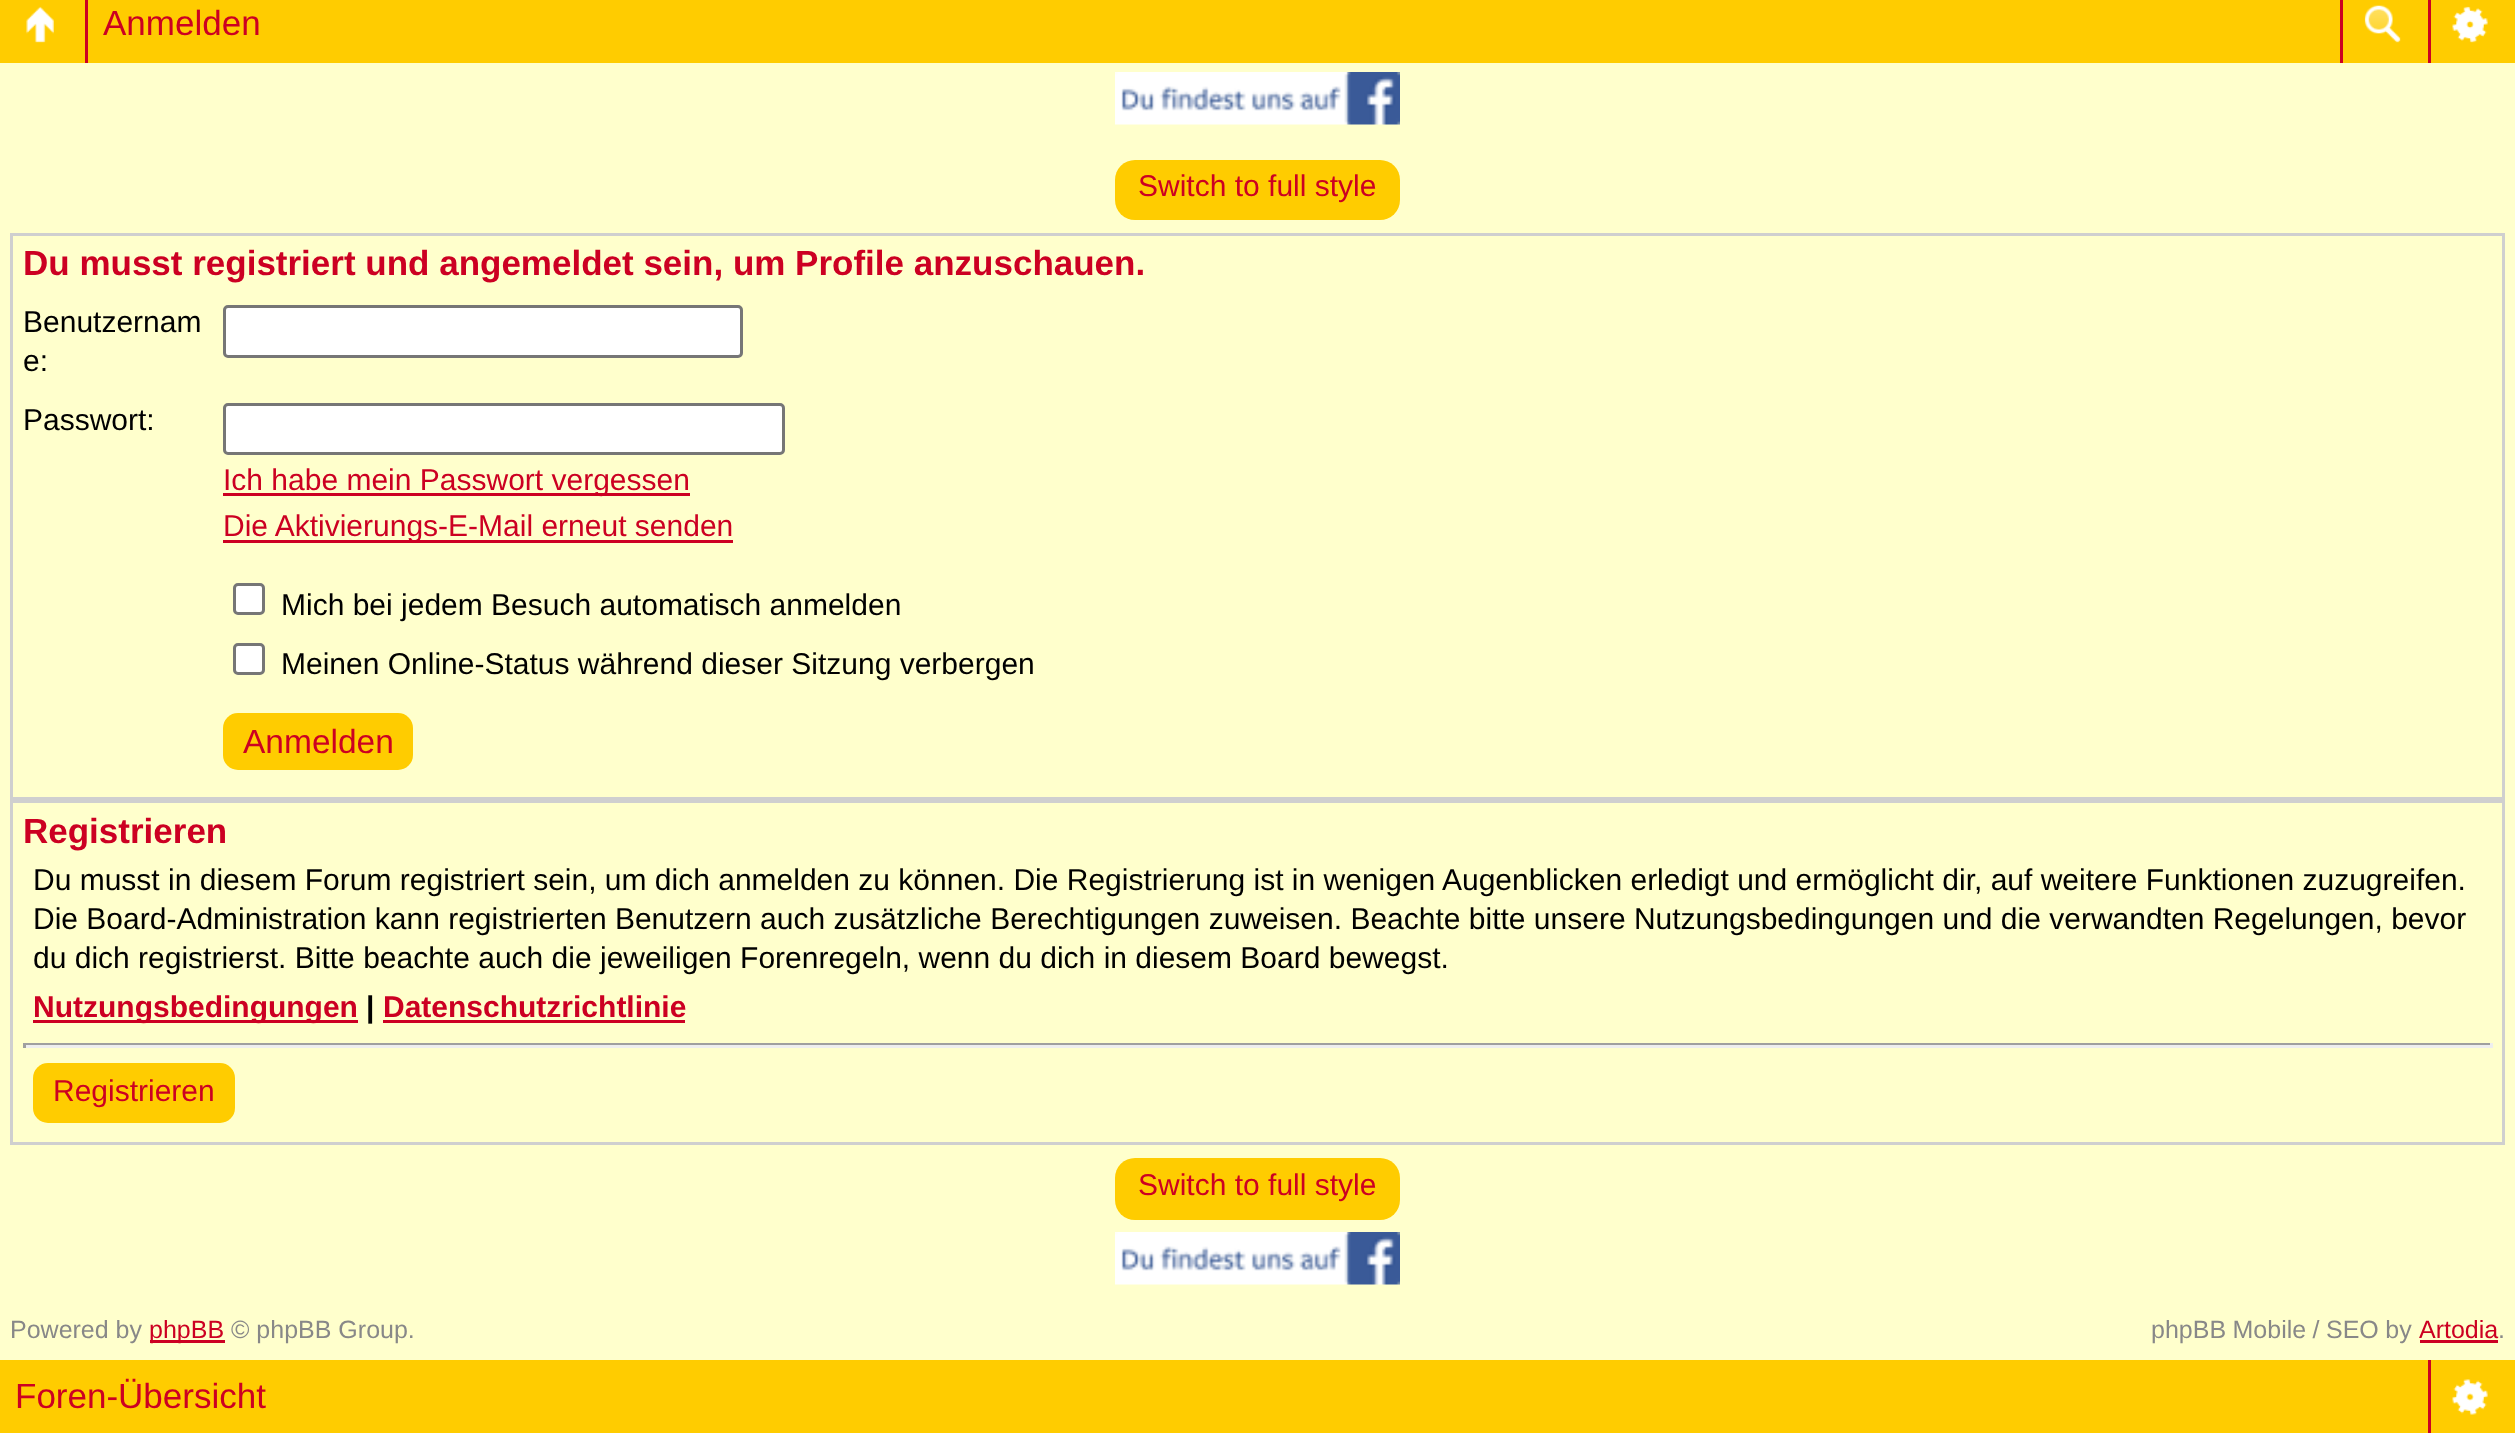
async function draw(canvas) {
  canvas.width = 2515
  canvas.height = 1433
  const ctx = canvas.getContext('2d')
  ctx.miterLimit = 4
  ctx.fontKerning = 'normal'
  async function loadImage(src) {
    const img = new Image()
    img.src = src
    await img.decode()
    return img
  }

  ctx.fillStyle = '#ffc'
  ctx.fillRect(0, 0, 2515, 1433)
  ctx.fillStyle = '#fc0'
  ctx.fillRect(0, 0, 2515, 63)
  ctx.drawImage(await loadImage('image0.png'), 26, 6, 28, 37)
  ctx.fillStyle = '#c02'
  ctx.fillRect(85, 0, 3, 63)
  ctx.font = '35px Liberation Sans'
  ctx.fillText('Anmelden', 103, 35)
  ctx.drawImage(await loadImage('image1.png'), 2364, 5, 37, 38)
  ctx.fillRect(2340, 0, 3, 63)
  ctx.drawImage(await loadImage('image2.png'), 2452, 6, 36, 37)
  ctx.fillRect(2428, 0, 3, 63)
  ctx.drawImage(await loadImage('image3.png'), 1115, 72, 285, 53)
  ctx.fillStyle = '#fc0'
  ctx.beginPath()
  ctx.roundRect(1115, 160, 285, 60, 20)
  ctx.fill()
  ctx.font = '30px Liberation Sans'
  ctx.fillStyle = '#c02'
  ctx.fillText('Switch to full style', 1138, 196)
  ctx.strokeStyle = '#cfcfcf'
  ctx.lineWidth = 3
  ctx.strokeRect(11.5, 234.5, 2492, 564)
  ctx.font = 'bold 35px Liberation Sans'
  ctx.fillText('Du musst registriert und angemeldet sein, um Profile anzuschauen.', 23, 275)
  ctx.font = '30px Liberation Sans'
  ctx.fillStyle = '#000'
  ctx.fillText('Benutzernam', 23, 332)
  ctx.fillText('e:', 23, 371)
  ctx.fillStyle = '#fff'
  ctx.beginPath()
  ctx.roundRect(224.5, 306.5, 517, 50, 3.5)
  ctx.fill()
  ctx.strokeStyle = '#767676'
  ctx.stroke()
  ctx.fillStyle = '#000'
  ctx.fillText('Passwort:', 23, 430)
  ctx.fillStyle = '#fff'
  ctx.beginPath()
  ctx.roundRect(224.5, 404.5, 559, 49, 3.5)
  ctx.fill()
  ctx.stroke()
  ctx.fillStyle = '#c02'
  ctx.fillRect(223, 493, 467, 3)
  ctx.fillText('Ich habe mein Passwort vergessen', 223, 490)
  ctx.fillRect(223, 540, 510, 3)
  ctx.fillText('Die Aktivierungs-E-Mail erneut senden', 223, 536)
  ctx.fillStyle = '#fff'
  ctx.beginPath()
  ctx.roundRect(234.5, 584.5, 29, 29, 3.5)
  ctx.fill()
  ctx.stroke()
  ctx.fillStyle = '#000'
  ctx.fillText('Mich bei jedem Besuch automatisch anmelden', 281, 615)
  ctx.fillStyle = '#fff'
  ctx.beginPath()
  ctx.roundRect(234.5, 644.5, 29, 29, 3.5)
  ctx.fill()
  ctx.stroke()
  ctx.fillStyle = '#000'
  ctx.fillText('Meinen Online-Status während dieser Sitzung verbergen', 281, 674)
  ctx.fillStyle = '#fc0'
  ctx.beginPath()
  ctx.roundRect(223, 713, 190, 57, 15)
  ctx.fill()
  ctx.font = '33.5px Liberation Sans'
  ctx.fillStyle = '#c02'
  ctx.fillText('Anmelden', 243, 753)
  ctx.strokeStyle = '#cfcfcf'
  ctx.strokeRect(11.5, 801.5, 2492, 342)
  ctx.font = 'bold 35px Liberation Sans'
  ctx.fillText('Registrieren', 23, 843)
  ctx.font = '30px Liberation Sans'
  ctx.fillStyle = '#000'
  ctx.fillText('Du musst in diesem Forum registriert sein, um dich anmelden zu können. Die Registrierung ist in wenigen Augenblicken erledigt und ermöglicht dir, auf weitere Funktionen zuzugreifen.', 33, 890)
  ctx.fillText('Die Board-Administration kann registrierten Benutzern auch zusätzliche Berechtigungen zuweisen. Beachte bitte unsere Nutzungsbedingungen und die verwandten Regelungen, bevor', 33, 929)
  ctx.fillText('du dich registrierst. Bitte beachte auch die jeweiligen Forenregeln, wenn du dich in diesem Board bewegst.', 33, 968)
  ctx.fillStyle = '#c02'
  ctx.fillRect(33, 1020, 325, 3)
  ctx.font = 'bold 30px Liberation Sans'
  ctx.fillText('Nutzungsbedingungen', 33, 1017)
  ctx.fillStyle = '#000'
  ctx.fillText('|', 366, 1017)
  ctx.fillStyle = '#c02'
  ctx.fillText('Datenschutzrichtlinie', 383, 1017)
  ctx.fillRect(383, 1020, 302, 3)
  ctx.fillStyle = '#9f9f9f'
  ctx.fillRect(23, 1043, 2470, 2)
  ctx.fillStyle = '#eee'
  ctx.fillRect(2490, 1043, 3, 5)
  ctx.fillRect(23, 1045, 2470, 3)
  ctx.fillStyle = '#9f9f9f'
  ctx.fillRect(23, 1043, 3, 5)
  ctx.fillStyle = '#fc0'
  ctx.beginPath()
  ctx.roundRect(33, 1063, 202, 60, 15)
  ctx.fill()
  ctx.font = '30px Liberation Sans'
  ctx.fillStyle = '#c02'
  ctx.fillText('Registrieren', 53, 1101)
  ctx.fillStyle = '#fc0'
  ctx.beginPath()
  ctx.roundRect(1115, 1158, 285, 62, 20)
  ctx.fill()
  ctx.fillStyle = '#c02'
  ctx.fillText('Switch to full style', 1138, 1195)
  ctx.drawImage(await loadImage('image3.png'), 1115, 1232, 285, 53)
  ctx.font = '25px Liberation Sans'
  ctx.fillStyle = '#888'
  ctx.fillText('Powered by', 10, 1338)
  ctx.fillStyle = '#c02'
  ctx.fillRect(150, 1340, 75, 3)
  ctx.fillText('phpBB', 149, 1338)
  ctx.fillStyle = '#888'
  ctx.fillText('© phpBB Group.', 231, 1338)
  ctx.wordSpacing = '-0.5px'
  ctx.fillText('phpBB Mobile / SEO by', 2151, 1338)
  ctx.wordSpacing = '0px'
  ctx.fillStyle = '#c02'
  ctx.fillText('Artodia', 2419, 1338)
  ctx.fillRect(2420, 1340, 78, 3)
  ctx.fillStyle = '#888'
  ctx.fillText('.', 2498, 1338)
  ctx.fillStyle = '#fc0'
  ctx.fillRect(0, 1360, 2515, 73)
  ctx.font = '35px Liberation Sans'
  ctx.fillStyle = '#c02'
  ctx.fillText('Foren-Übersicht', 15, 1408)
  ctx.drawImage(await loadImage('image4.png'), 2452, 1379, 36, 36)
  ctx.fillRect(2428, 1360, 3, 73)
}

draw(document.querySelector('canvas'))
